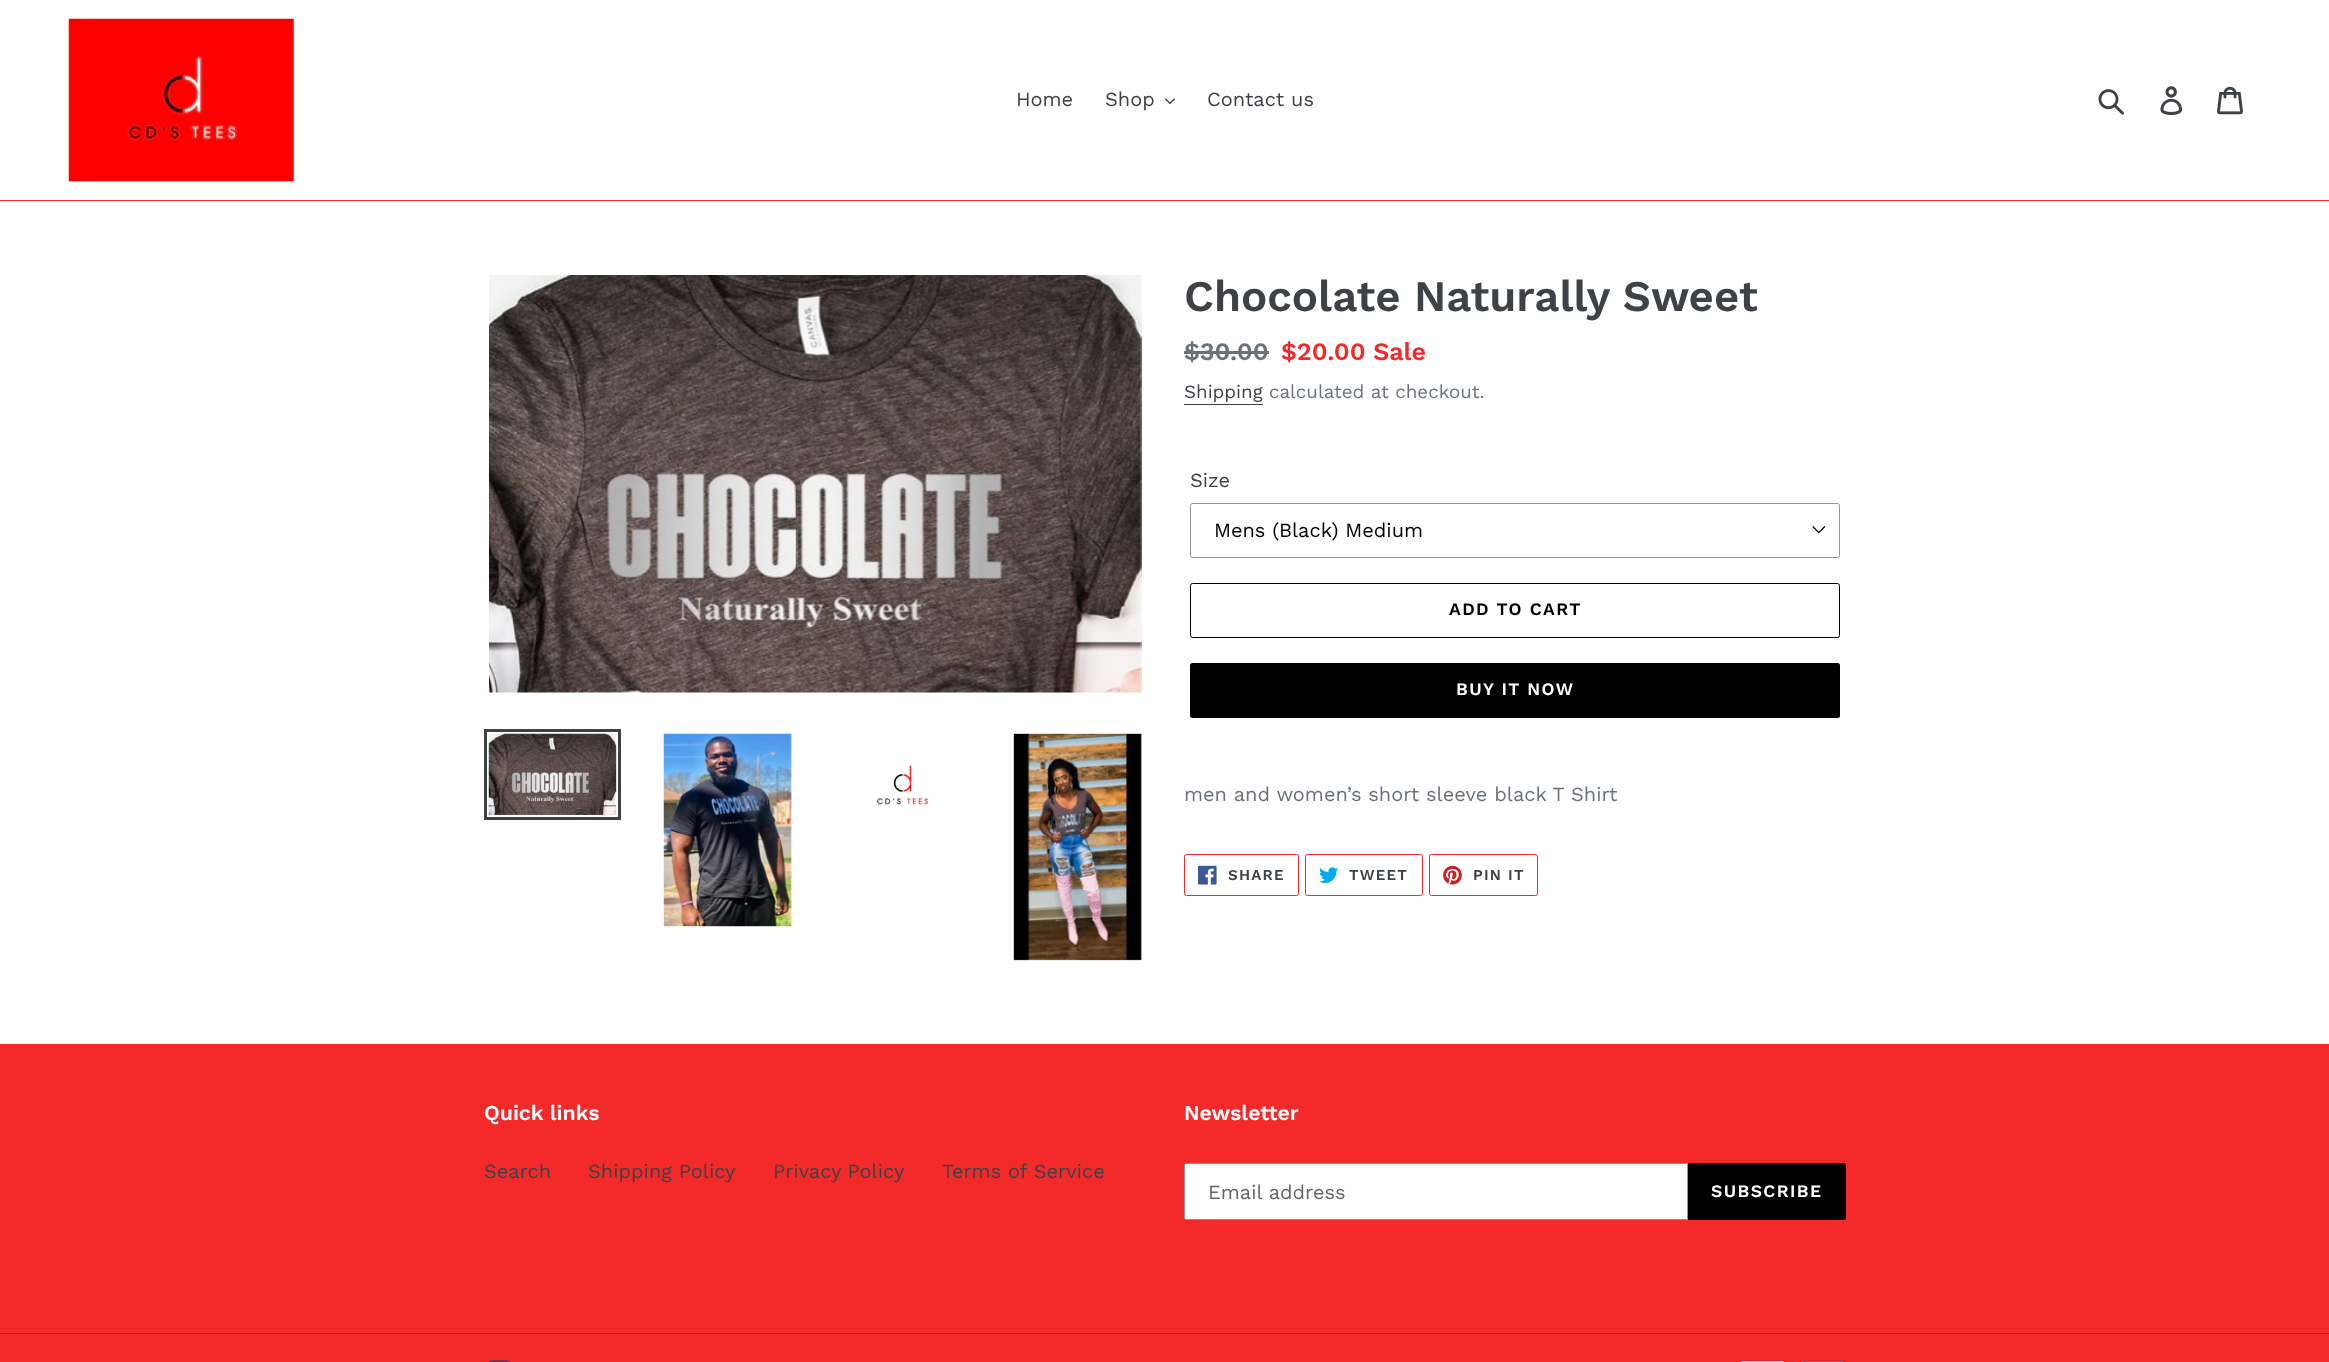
async function draw(canvas) {
  canvas.width = 2329
  canvas.height = 1362
  const ctx = canvas.getContext('2d')
  ctx.miterLimit = 4
  ctx.fontKerning = 'normal'
  async function loadImage(src) {
    const img = new Image()
    img.src = src
    await img.decode()
    return img
  }

  ctx.fillStyle = '#fff'
  ctx.fillRect(0, 0, 2329, 1362)
  ctx.fillStyle = '#f42929'
  ctx.fillRect(0, 200, 2329, 1)
  ctx.drawImage(await loadImage('image0.png'), 68, 18, 226, 164)
  ctx.font = '20px Work Sans'
  ctx.fillStyle = '#3d4246'
  ctx.fillText('Home', 1016, 106)
  ctx.fillText('Shop', 1105, 106)
  ctx.drawImage(await loadImage('image1.png'), 1165, 98, 10, 6)
  ctx.fillText('Contact us', 1207, 106)
  ctx.drawImage(await loadImage('image2.png'), 2098, 89, 26, 26)
  ctx.drawImage(await loadImage('image3.png'), 2160, 86, 23, 29)
  ctx.drawImage(await loadImage('image4.png'), 2217, 86, 26, 29)
  ctx.drawImage(await loadImage('image5.png'), 489, 275, 653, 418)
  ctx.strokeStyle = '#3d4246'
  ctx.lineWidth = 3
  ctx.strokeRect(485.5, 730.5, 134, 88)
  ctx.drawImage(await loadImage('image6.png'), 488, 733, 129, 82)
  ctx.drawImage(await loadImage('image7.png'), 663, 733, 129, 194)
  ctx.drawImage(await loadImage('image8.png'), 876, 762, 53, 44)
  ctx.drawImage(await loadImage('image9.png'), 1013, 733, 129, 228)
  ctx.font = '600 43.75px Work Sans'
  ctx.fillText('Chocolate Naturally Sweet', 1184, 311)
  ctx.font = '600 25px Work Sans'
  ctx.fillStyle = '#69727b'
  ctx.fillText('$30.00', 1184, 360)
  ctx.fillRect(1184, 351, 85, 3)
  ctx.fillStyle = '#f42929'
  ctx.fillText('$20.00 Sale', 1281, 360)
  ctx.font = '18.75px Work Sans'
  ctx.fillStyle = '#3d4246'
  ctx.fillText('Shipping', 1184, 398)
  ctx.fillRect(1184, 404, 79, 1)
  ctx.fillStyle = '#69727b'
  ctx.fillText('calculated at checkout.', 1269, 398)
  ctx.font = '20px Work Sans'
  ctx.fillStyle = '#3d4246'
  ctx.fillText('Size', 1190, 487)
  ctx.drawImage(await loadImage('image10.png'), 1812, 526, 14, 8)
  ctx.beginPath()
  ctx.roundRect(1190.5, 503.5, 649, 54, 2)
  ctx.strokeStyle = '#949494'
  ctx.lineWidth = 1
  ctx.stroke()
  ctx.fillStyle = '#000'
  ctx.fillText('Mens (Black) Medium', 1214, 537)
  ctx.beginPath()
  ctx.roundRect(1190.5, 583.5, 649, 54, 2)
  ctx.strokeStyle = '#000'
  ctx.stroke()
  ctx.letterSpacing = '1.4px'
  ctx.font = '600 17.5px Work Sans'
  ctx.fillText('ADD TO CART', 1449, 615)
  ctx.beginPath()
  ctx.roundRect(1190, 663, 650, 55, 2.5)
  ctx.fill()
  ctx.fillStyle = '#fff'
  ctx.fillText('BUY IT NOW', 1456, 695)
  ctx.letterSpacing = '0px'
  ctx.font = '20px Work Sans'
  ctx.fillStyle = '#69727b'
  ctx.fillText('men and women’s short sleeve black T Shirt', 1184, 801)
  ctx.beginPath()
  ctx.roundRect(1184.5, 854.5, 114, 41, 2)
  ctx.strokeStyle = '#f42929'
  ctx.stroke()
  ctx.drawImage(await loadImage('image11.png'), 1198, 865, 19, 20)
  ctx.letterSpacing = '1.25px'
  ctx.font = '600 15px Work Sans'
  ctx.fillStyle = '#3d4246'
  ctx.fillText('SHARE', 1228, 880)
  ctx.beginPath()
  ctx.roundRect(1305.5, 854.5, 117, 41, 2)
  ctx.stroke()
  ctx.drawImage(await loadImage('image12.png'), 1319, 867, 20, 16)
  ctx.fillText('TWEET', 1349, 880)
  ctx.beginPath()
  ctx.roundRect(1429.5, 854.5, 108, 41, 2)
  ctx.stroke()
  ctx.drawImage(await loadImage('image13.png'), 1443, 865, 19, 20)
  ctx.fillText('PIN IT', 1473, 880)
  ctx.fillStyle = '#f42929'
  ctx.fillRect(0, 1044, 2329, 318)
  ctx.letterSpacing = '0px'
  ctx.font = '600 21.25px Work Sans'
  ctx.fillStyle = '#fff'
  ctx.fillText('Quick links', 484, 1120)
  ctx.font = '20px Work Sans'
  ctx.fillStyle = '#3d4246'
  ctx.fillText('Search', 484, 1178)
  ctx.fillText('Shipping Policy', 588, 1178)
  ctx.fillText('Privacy Policy', 773, 1178)
  ctx.fillText('Terms of Service', 942, 1178)
  ctx.font = '600 21.25px Work Sans'
  ctx.fillStyle = '#fff'
  ctx.fillText('Newsletter', 1184, 1120)
  ctx.beginPath()
  ctx.roundRect(1184.5, 1163.5, 503, 56, [2, 0, 0, 2])
  ctx.fill()
  ctx.strokeStyle = '#949494'
  ctx.stroke()
  ctx.font = '20px Work Sans'
  ctx.fillStyle = '#666'
  ctx.fillText('Email address', 1208, 1199)
  ctx.fillStyle = '#000'
  ctx.beginPath()
  ctx.roundRect(1688, 1163, 158, 57, [0, 2.5, 2.5, 0])
  ctx.fill()
  ctx.letterSpacing = '1.4px'
  ctx.font = '600 17.5px Work Sans'
  ctx.fillStyle = '#fff'
  ctx.fillText('SUBSCRIBE', 1711, 1197)
  ctx.fillStyle = '#df0b0b'
  ctx.fillRect(0, 1333, 2329, 1)
  ctx.drawImage(await loadImage('image14.png'), 487, 1360, 24, 2)
  ctx.drawImage(await loadImage('image15.png'), 1739, 1360, 47, 2)
  ctx.drawImage(await loadImage('image16.png'), 1800, 1360, 45, 2)
}

draw(document.querySelector('canvas'))
